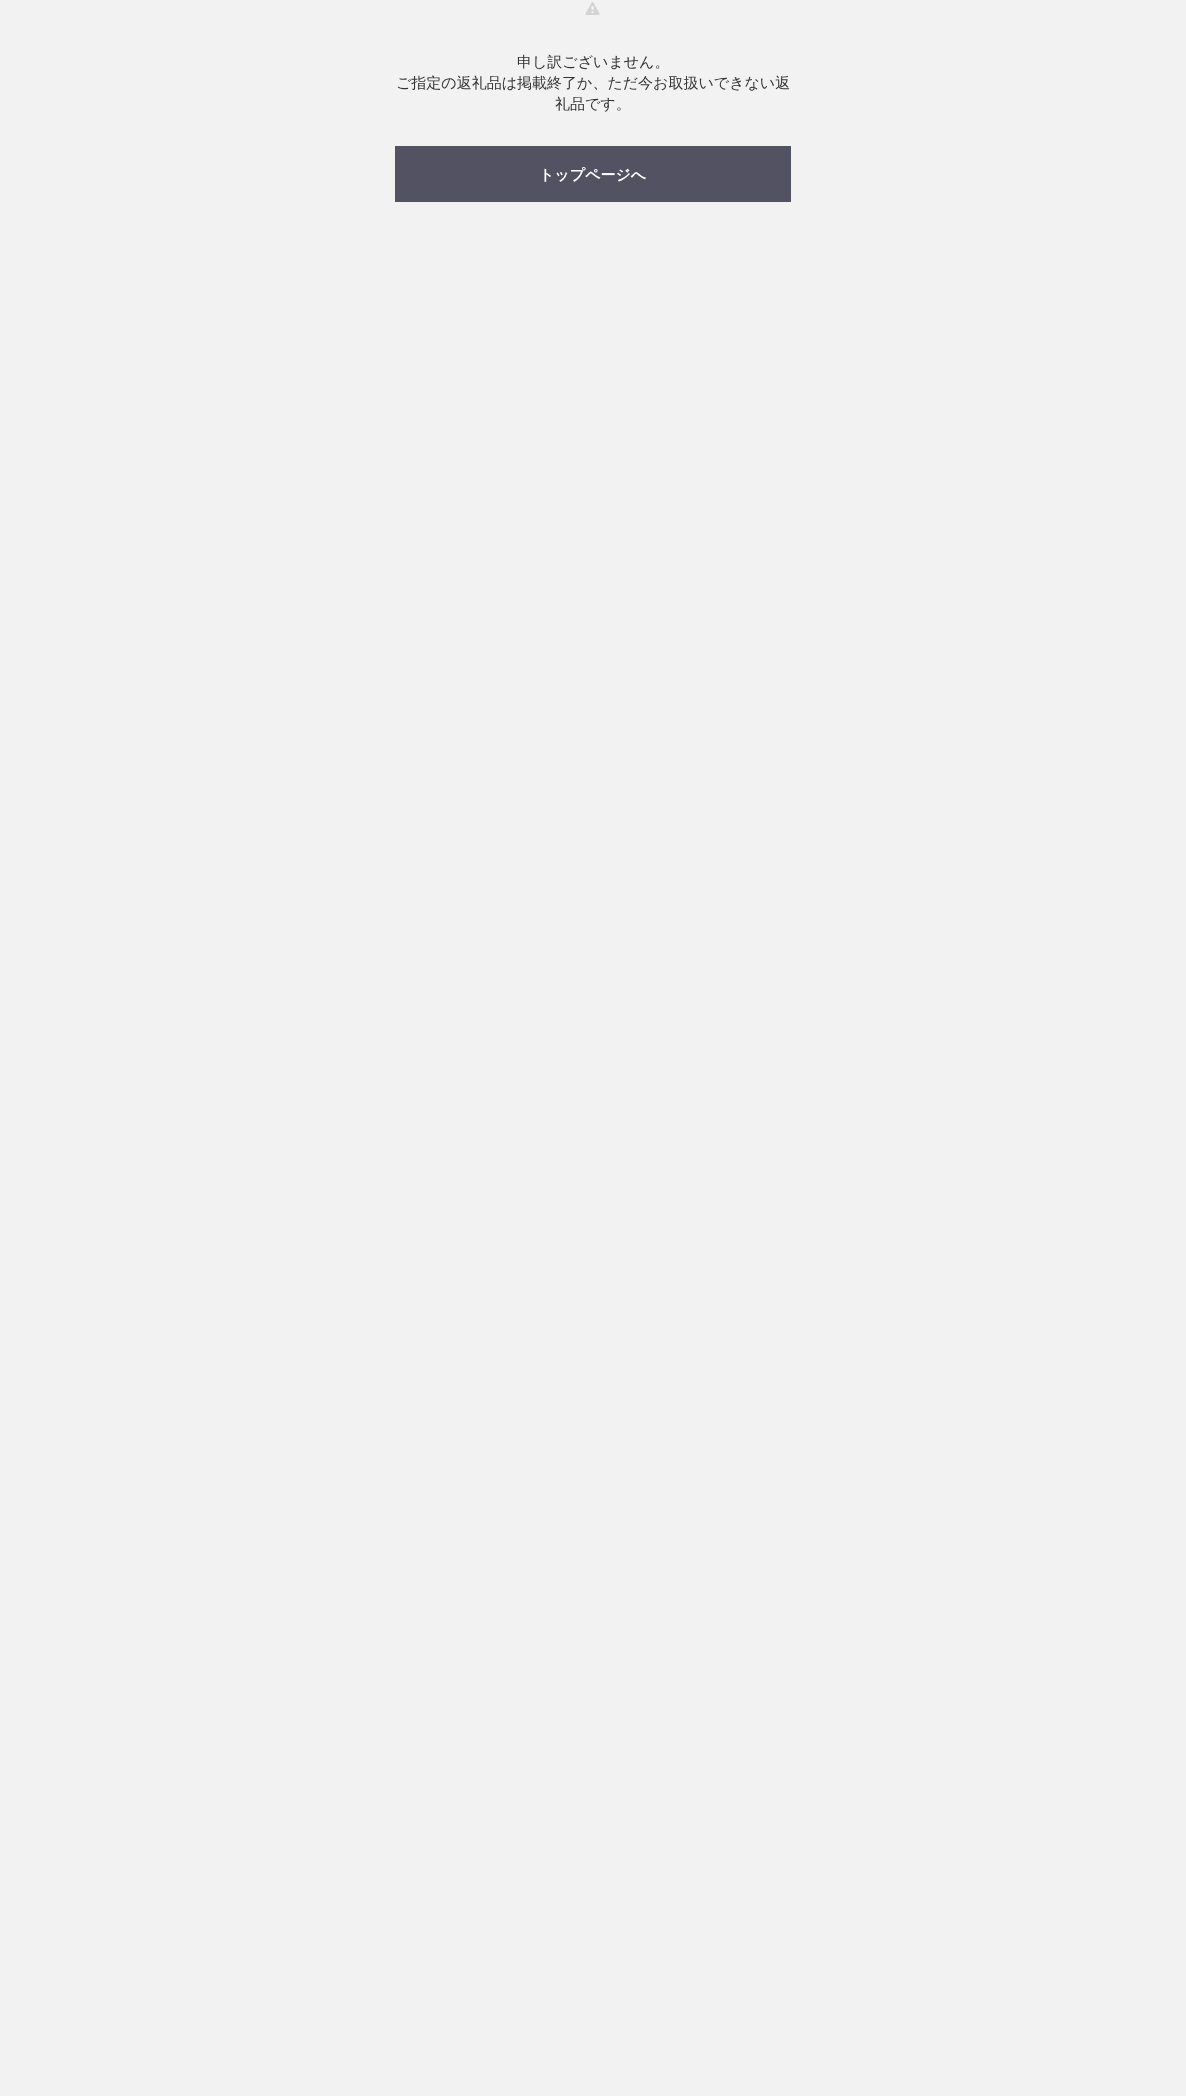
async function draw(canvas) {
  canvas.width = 1186
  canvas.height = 2096
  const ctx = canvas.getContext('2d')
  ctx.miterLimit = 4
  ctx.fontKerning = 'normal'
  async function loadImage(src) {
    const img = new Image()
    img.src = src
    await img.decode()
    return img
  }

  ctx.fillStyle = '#f2f2f2'
  ctx.fillRect(0, 0, 1186, 2096)
  ctx.drawImage(await loadImage('image0.png'), 585, 2, 15, 13)
  ctx.font = '500 15px WenQuanYi Zen Hei'
  ctx.fillStyle = '#333'
  ctx.fillText('申し訳ございません。', 517, 67)
  ctx.fillText('ご指定の返礼品は掲載終了か、ただ今お取扱いできない返', 396, 88)
  ctx.fillText('礼品です。', 555, 109)
  ctx.fillStyle = '#525263'
  ctx.fillRect(395, 146, 396, 56)
  ctx.font = 'bold 15px WenQuanYi Zen Hei'
  ctx.fillStyle = '#fff'
  ctx.fillText('トップページへ', 539, 180)
}

draw(document.querySelector('canvas'))
